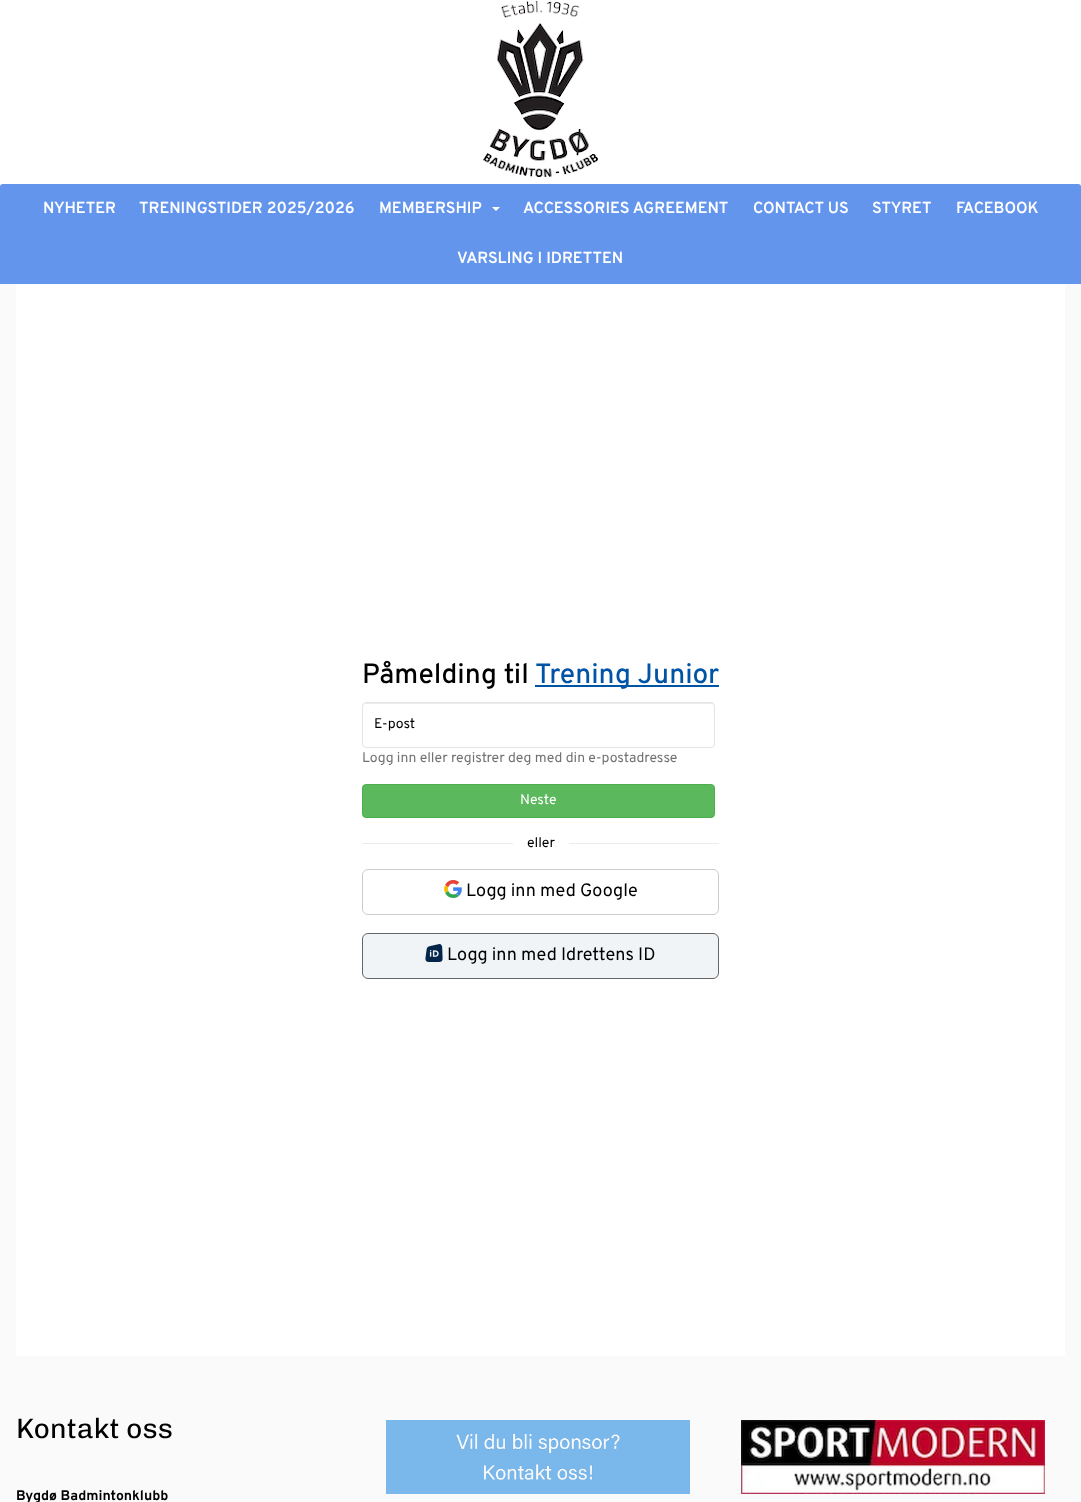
async function draw(canvas) {
  canvas.width = 1081
  canvas.height = 1502
  const ctx = canvas.getContext('2d')
  ctx.miterLimit = 4
  ctx.fontKerning = 'normal'
  async function loadImage(src) {
    const img = new Image()
    img.src = src
    await img.decode()
    return img
  }

  ctx.fillStyle = '#fafafa'
  ctx.fillRect(0, 0, 1081, 1502)
  ctx.fillStyle = '#fff'
  ctx.fillRect(0, 0, 1081, 184)
  ctx.drawImage(await loadImage('image0.png'), 483, 0, 115, 177)
  ctx.fillStyle = '#6495ed'
  ctx.beginPath()
  ctx.roundRect(0, 184, 1081, 100, [3, 3, 0, 0])
  ctx.fill()
  ctx.font = '600 16px Overpass'
  ctx.fillStyle = '#fff'
  ctx.fillText('NYHETER', 43, 213)
  ctx.fillText('TRENINGSTIDER 2025/2026', 139, 213)
  ctx.fillText('MEMBERSHIP', 379, 213)
  ctx.beginPath()
  ctx.moveTo(492, 207)
  ctx.lineTo(500, 207)
  ctx.lineTo(496, 211)
  ctx.closePath()
  ctx.fill()
  ctx.fillText('ACCESSORIES AGREEMENT', 523, 213)
  ctx.fillText('CONTACT US', 753, 213)
  ctx.fillText('STYRET', 872, 213)
  ctx.fillText('FACEBOOK', 956, 213)
  ctx.fillText('VARSLING I IDRETTEN', 457, 263)
  ctx.fillRect(16, 284, 1049, 1072)
  ctx.font = '500 28px Overpass'
  ctx.fillStyle = '#000'
  ctx.fillText('Påmelding til', 362, 683)
  ctx.fillStyle = '#0054a6'
  ctx.fillRect(535, 685, 184, 2)
  ctx.fillText('Trening Junior', 535, 683)
  ctx.fillStyle = '#ececec'
  ctx.beginPath()
  ctx.moveTo(366, 704)
  ctx.lineTo(711, 704)
  ctx.bezierCurveTo(713, 704, 714, 705, 714, 707)
  ctx.bezierCurveTo(714, 705, 713, 703, 711, 703)
  ctx.lineTo(366, 703)
  ctx.lineTo(364, 704)
  ctx.lineTo(363, 707)
  ctx.bezierCurveTo(363, 705, 364, 704, 366, 704)
  ctx.closePath()
  ctx.fill()
  ctx.beginPath()
  ctx.roundRect(362.5, 702.5, 352, 45, 3.5)
  ctx.strokeStyle = '#e4e4e7'
  ctx.stroke()
  ctx.font = '14px Overpass'
  ctx.fillStyle = '#000'
  ctx.fillText('E-post', 374, 728)
  ctx.fillStyle = '#737373'
  ctx.fillText('Logg inn eller registrer deg med din e-postadresse', 362, 762)
  ctx.fillStyle = '#5cb85c'
  ctx.beginPath()
  ctx.roundRect(362.5, 784.5, 352, 33, 3.5)
  ctx.fill()
  ctx.strokeStyle = '#4cae4c'
  ctx.stroke()
  ctx.fillStyle = '#fff'
  ctx.fillText('Neste', 520, 804)
  ctx.fillStyle = '#edeae9'
  ctx.fillRect(362, 843, 151, 1)
  ctx.fillStyle = '#000'
  ctx.fillText('eller', 527, 847)
  ctx.fillStyle = '#edeae9'
  ctx.fillRect(569, 843, 150, 1)
  ctx.beginPath()
  ctx.roundRect(362.5, 869.5, 356, 45, 5.5)
  ctx.strokeStyle = '#cfcbcb'
  ctx.stroke()
  ctx.drawImage(await loadImage('image1.png'), 444, 880, 18, 18)
  ctx.font = '18px Overpass'
  ctx.fillStyle = '#000'
  ctx.fillText('Logg inn med Google', 466, 896)
  ctx.fillStyle = '#f0f4f7'
  ctx.beginPath()
  ctx.roundRect(362.5, 933.5, 356, 45, 5.5)
  ctx.fill()
  ctx.strokeStyle = '#666'
  ctx.stroke()
  ctx.drawImage(await loadImage('image2.png'), 425, 944, 18, 18)
  ctx.fillStyle = '#000'
  ctx.fillText('Logg inn med Idrettens ID', 447, 960)
  ctx.font = '28px Chivo'
  ctx.fillText('Kontakt oss', 16, 1438)
  ctx.font = 'bold 14px Overpass'
  ctx.fillText('Bygdø Badmintonklubb', 16, 1500)
  ctx.drawImage(await loadImage('image3.png'), 386, 1420, 304, 74)
  ctx.drawImage(await loadImage('image4.png'), 741, 1420, 304, 74)
}

draw(document.querySelector('canvas'))
